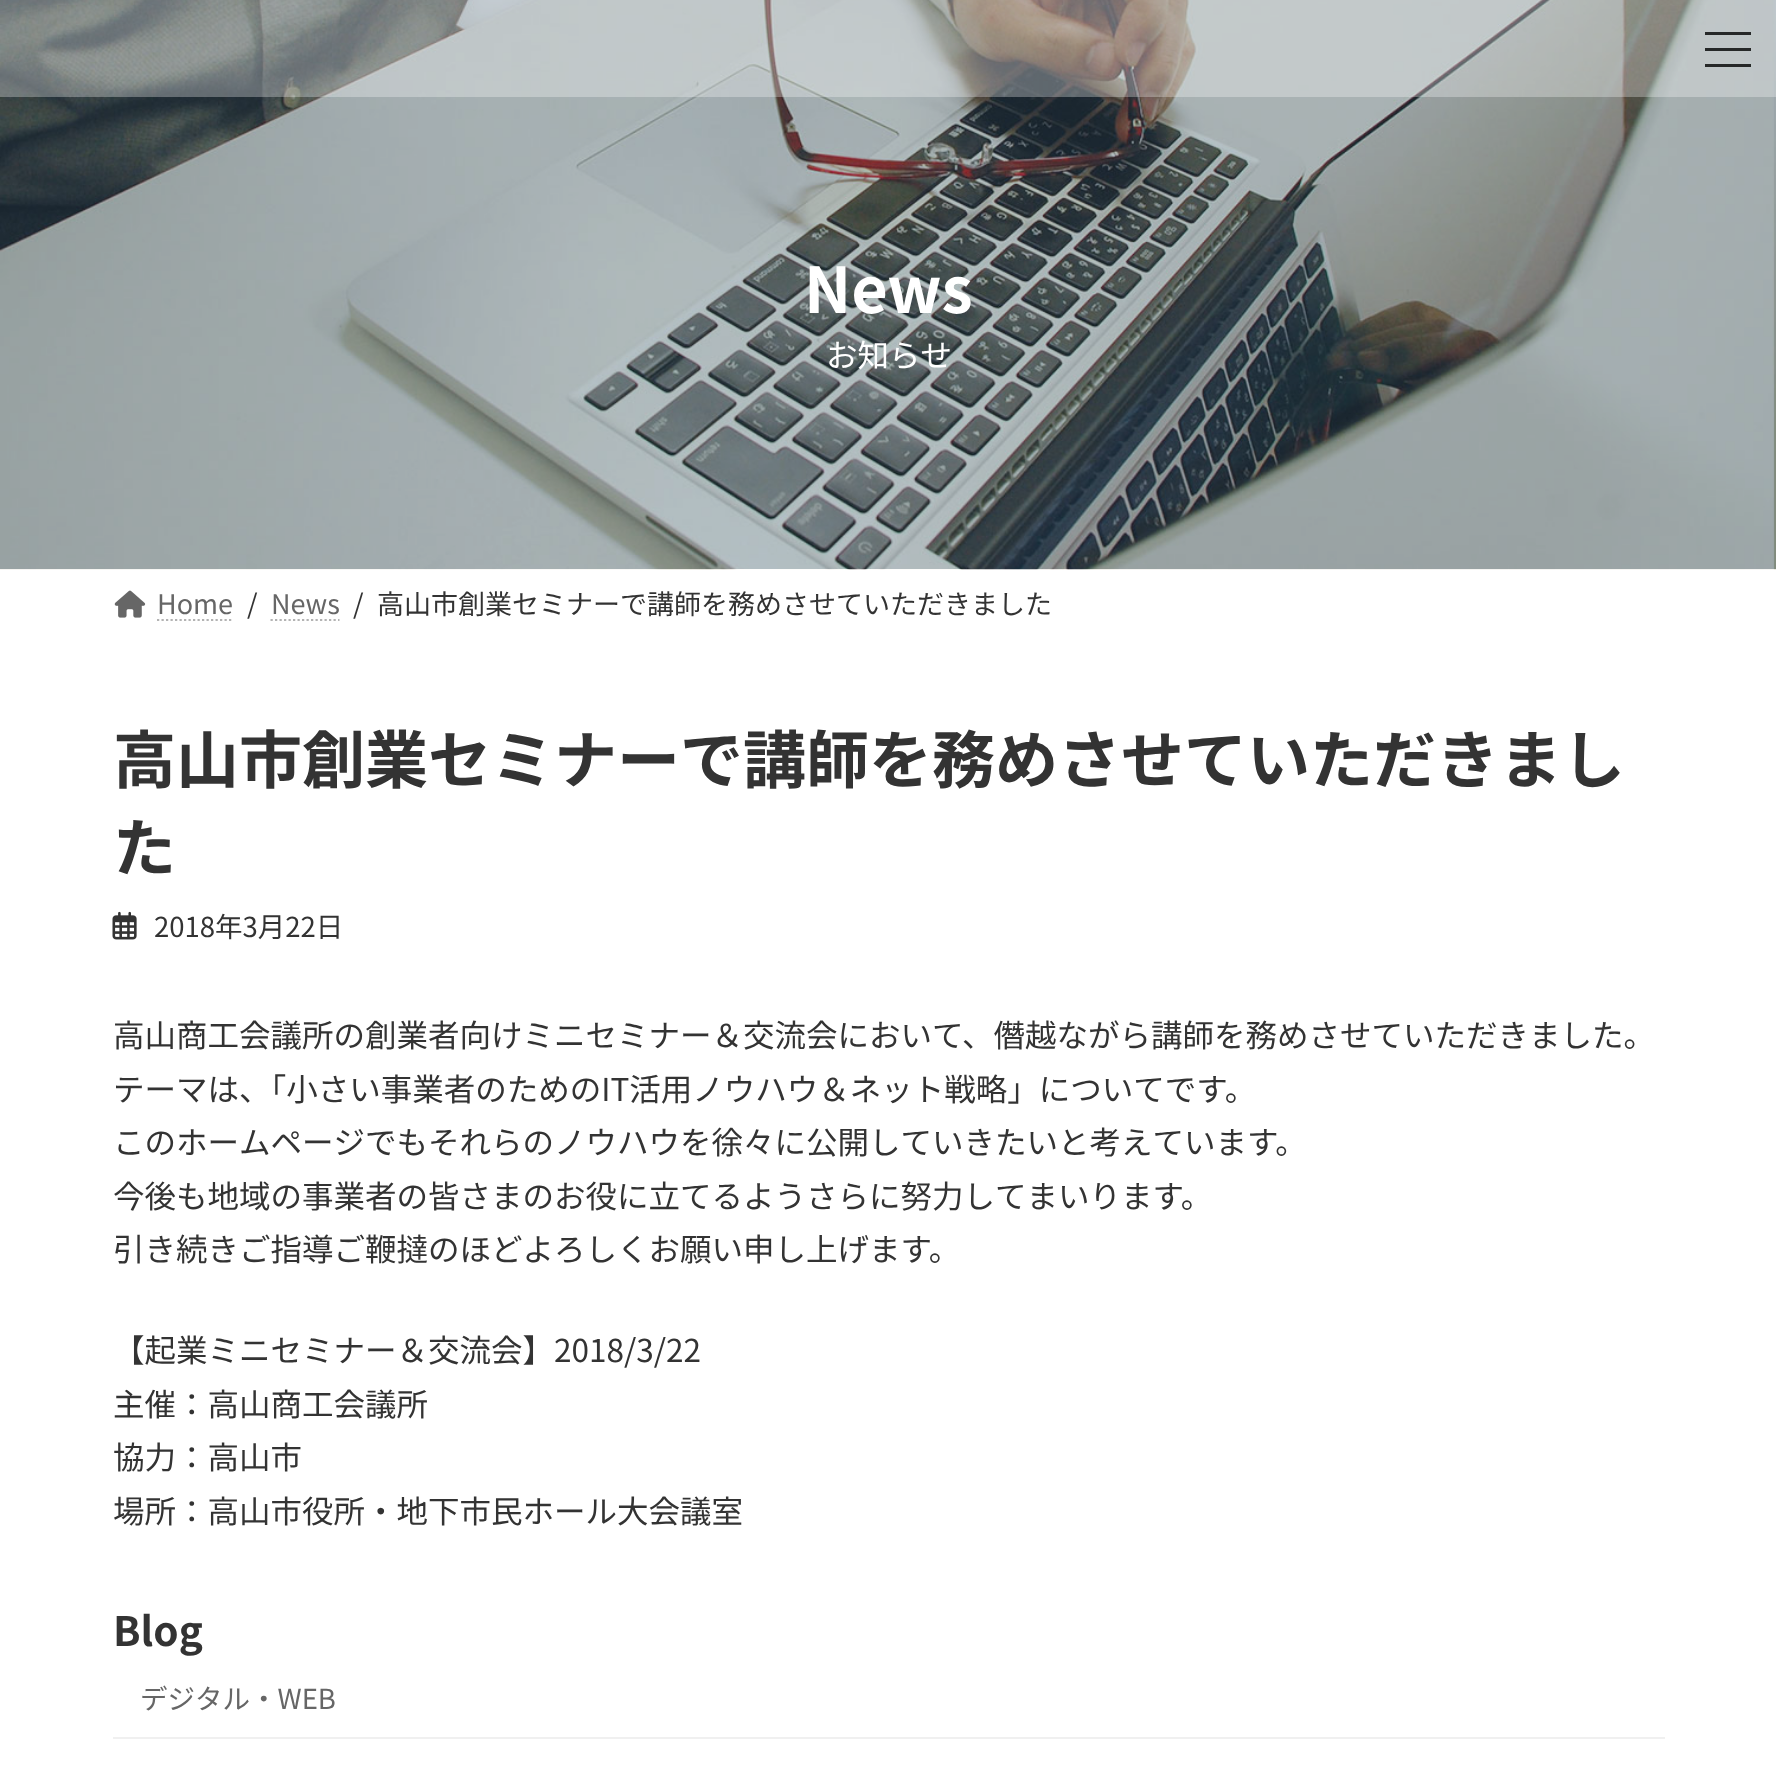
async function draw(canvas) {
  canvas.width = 1776
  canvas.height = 1770
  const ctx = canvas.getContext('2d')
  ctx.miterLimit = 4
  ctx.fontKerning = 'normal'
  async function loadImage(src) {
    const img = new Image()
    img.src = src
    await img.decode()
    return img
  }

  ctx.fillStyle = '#fff'
  ctx.fillRect(0, 0, 1776, 1770)
  ctx.drawImage(await loadImage('image0.png'), 0, 0, 1776, 570)
  ctx.fillStyle = '#ffffff4d'
  ctx.fillRect(0, 0, 1776, 97)
  ctx.fillStyle = '#262828'
  ctx.fillRect(1705, 32, 46, 3)
  ctx.fillRect(1705, 48, 46, 3)
  ctx.fillRect(1705, 64, 46, 3)
  ctx.font = 'bold 63px Noto Sans JP'
  ctx.fillStyle = '#fff'
  ctx.fillText('News', 804, 313)
  ctx.font = '31.5px Noto Sans JP'
  ctx.fillText('お知らせ', 826, 367)
  ctx.drawImage(await loadImage('image1.png'), 114, 590, 32, 28)
  ctx.font = '27px Noto Sans JP'
  ctx.fillStyle = '#666'
  ctx.fillText('Home', 157, 614)
  ctx.beginPath()
  ctx.moveTo(157, 620)
  ctx.lineTo(233, 620)
  ctx.strokeStyle = '#b3b3b3'
  ctx.lineWidth = 2.2
  ctx.setLineDash([2.25, 2.25])
  ctx.stroke()
  ctx.fillStyle = '#333'
  ctx.fillText('/', 247, 614)
  ctx.fillStyle = '#666'
  ctx.fillText('News', 271, 614)
  ctx.beginPath()
  ctx.moveTo(270.5, 620)
  ctx.lineTo(339.5, 620)
  ctx.stroke()
  ctx.fillStyle = '#333'
  ctx.fillText('/', 353, 614)
  ctx.fillText('高山市創業セミナーで講師を務めさせていただきました', 377, 614)
  ctx.font = 'bold 63px Noto Sans JP'
  ctx.fillText('高山市創業セミナーで講師を務めさせていただきまし', 113, 783)
  ctx.fillText('た', 113, 871)
  ctx.drawImage(await loadImage('image2.png'), 112, 911, 25, 29)
  ctx.font = '27.5px Noto Sans JP'
  ctx.fillText('2018年3月22日', 154, 937)
  ctx.font = '31.5px Noto Sans JP'
  ctx.fillText('高山商工会議所の創業者向けミニセミナー＆交流会において、僭越ながら講師を務めさせていただきました。', 113, 1047)
  ctx.fillText('テーマは、「小さい事業者のためのIT活用ノウハウ＆ネット戦略」についてです。', 113, 1101)
  ctx.fillText('このホームページでもそれらのノウハウを徐々に公開していきたいと考えています。', 113, 1154)
  ctx.fillText('今後も地域の事業者の皆さまのお役に立てるようさらに努力してまいります。', 113, 1208)
  ctx.fillText('引き続きご指導ご鞭撻のほどよろしくお願い申し上げます。', 113, 1261)
  ctx.fillText('【起業ミニセミナー＆交流会】2018/3/22', 113, 1362)
  ctx.fillText('主催：高山商工会議所', 113, 1416)
  ctx.fillText('協力：高山市', 113, 1469)
  ctx.fillText('場所：高山市役所・地下市民ホール大会議室', 113, 1523)
  ctx.font = 'bold 40.5px Noto Sans JP'
  ctx.fillText('Blog', 113, 1646)
  ctx.fillStyle = '#f0f0f0'
  ctx.fillRect(113, 1737, 1552, 2)
  ctx.font = '27.5px Noto Sans JP'
  ctx.fillStyle = '#666'
  ctx.fillText('デジタル・WEB', 140, 1709)
}

draw(document.querySelector('canvas'))
